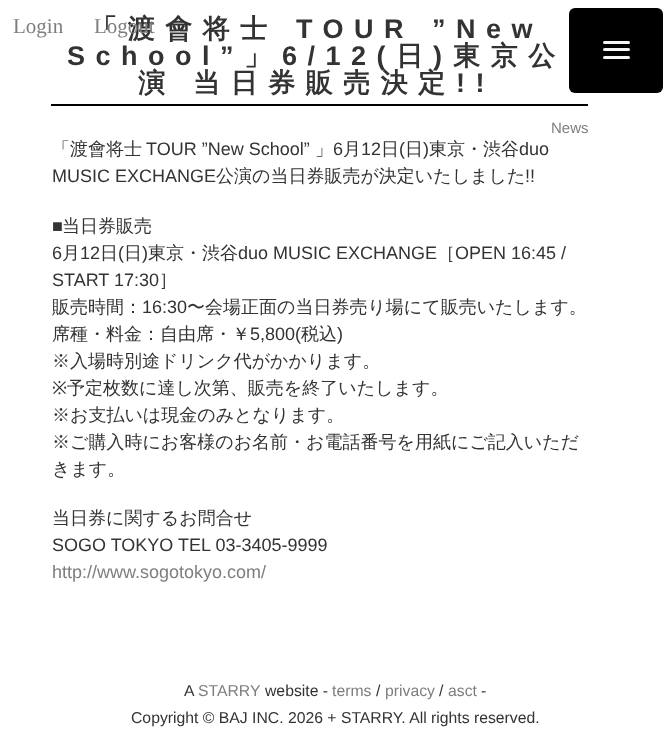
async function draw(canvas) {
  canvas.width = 670
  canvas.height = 732
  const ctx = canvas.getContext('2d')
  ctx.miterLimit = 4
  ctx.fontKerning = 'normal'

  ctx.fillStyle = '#fff'
  ctx.fillRect(0, 0, 670, 732)
  ctx.fillStyle = '#000'
  ctx.fillRect(51, 104, 537, 2)
  ctx.letterSpacing = '10.5px'
  ctx.font = 'bold 27px WenQuanYi Zen Hei'
  ctx.fillStyle = '#333'
  ctx.fillText('「渡會将士', 90, 38)
  ctx.font = 'bold 27px Liberation Sans'
  ctx.fillText('TOUR ”New', 296, 38)
  ctx.fillText('School”', 67, 65)
  ctx.font = 'bold 27px WenQuanYi Zen Hei'
  ctx.fillText('」', 244, 65)
  ctx.font = 'bold 27px Liberation Sans'
  ctx.fillText('6/12(', 282, 65)
  ctx.font = 'bold 27px WenQuanYi Zen Hei'
  ctx.fillText('日', 396, 65)
  ctx.font = 'bold 27px Liberation Sans'
  ctx.fillText(')', 433, 65)
  ctx.font = 'bold 27px WenQuanYi Zen Hei'
  ctx.fillText('東京公', 453, 65)
  ctx.wordSpacing = '-1px'
  ctx.fillText('演 当日券販売決定', 138, 92)
  ctx.wordSpacing = '0px'
  ctx.font = 'bold 27px Liberation Sans'
  ctx.fillText('!!', 456, 92)
  ctx.letterSpacing = '0px'
  ctx.font = '15px Liberation Sans'
  ctx.fillStyle = '#7e7e7e'
  ctx.fillText('News', 551, 133)
  ctx.font = '500 18px WenQuanYi Zen Hei'
  ctx.fillStyle = '#333'
  ctx.fillText('「渡會将士', 52, 155)
  ctx.font = '18px Liberation Sans'
  ctx.fillText('TOUR ”New School”', 146, 155)
  ctx.font = '500 18px WenQuanYi Zen Hei'
  ctx.fillText('」', 315, 155)
  ctx.font = '18px Liberation Sans'
  ctx.fillText('6', 333, 155)
  ctx.font = '500 18px WenQuanYi Zen Hei'
  ctx.fillText('月', 343, 155)
  ctx.font = '18px Liberation Sans'
  ctx.fillText('12', 361, 155)
  ctx.font = '500 18px WenQuanYi Zen Hei'
  ctx.fillText('日', 381, 155)
  ctx.font = '18px Liberation Sans'
  ctx.fillText('(', 399, 155)
  ctx.font = '500 18px WenQuanYi Zen Hei'
  ctx.fillText('日', 405, 155)
  ctx.font = '18px Liberation Sans'
  ctx.fillText(')', 423, 155)
  ctx.font = '500 18px WenQuanYi Zen Hei'
  ctx.fillText('東京・渋谷', 429, 155)
  ctx.font = '18px Liberation Sans'
  ctx.fillText('duo', 519, 155)
  ctx.fillText('MUSIC EXCHANGE', 52, 182)
  ctx.font = '500 18px WenQuanYi Zen Hei'
  ctx.fillText('公演の当日券販売が決定いたしました', 216, 182)
  ctx.font = '18px Liberation Sans'
  ctx.fillText('!!', 525, 182)
  ctx.fillText('■', 52, 232)
  ctx.font = '500 18px WenQuanYi Zen Hei'
  ctx.fillText('当日券販売', 62, 232)
  ctx.font = '18px Liberation Sans'
  ctx.fillText('6', 52, 259)
  ctx.font = '500 18px WenQuanYi Zen Hei'
  ctx.fillText('月', 62, 259)
  ctx.font = '18px Liberation Sans'
  ctx.fillText('12', 80, 259)
  ctx.font = '500 18px WenQuanYi Zen Hei'
  ctx.fillText('日', 100, 259)
  ctx.font = '18px Liberation Sans'
  ctx.fillText('(', 118, 259)
  ctx.font = '500 18px WenQuanYi Zen Hei'
  ctx.fillText('日', 124, 259)
  ctx.font = '18px Liberation Sans'
  ctx.fillText(')', 142, 259)
  ctx.font = '500 18px WenQuanYi Zen Hei'
  ctx.fillText('東京・渋谷', 148, 259)
  ctx.font = '18px Liberation Sans'
  ctx.fillText('duo MUSIC EXCHANGE', 238, 259)
  ctx.font = '500 18px WenQuanYi Zen Hei'
  ctx.fillText('［', 437, 259)
  ctx.font = '18px Liberation Sans'
  ctx.fillText('OPEN 16:45 /', 455, 259)
  ctx.fillText('START 17:30', 52, 286)
  ctx.font = '500 18px WenQuanYi Zen Hei'
  ctx.fillText('］', 159, 286)
  ctx.fillText('販売時間：', 52, 313)
  ctx.font = '18px Liberation Sans'
  ctx.fillText('16:30', 142, 313)
  ctx.font = '500 18px WenQuanYi Zen Hei'
  ctx.fillText('〜会場正面の当日券売り場にて販売いたします。', 187, 313)
  ctx.fillText('席種・料金：自由席・￥', 52, 340)
  ctx.font = '18px Liberation Sans'
  ctx.fillText('5,800(', 250, 340)
  ctx.font = '500 18px WenQuanYi Zen Hei'
  ctx.fillText('税込', 301, 340)
  ctx.font = '18px Liberation Sans'
  ctx.fillText(')', 337, 340)
  ctx.font = '500 18px WenQuanYi Zen Hei'
  ctx.fillText('※入場時別途ドリンク代がかかります。', 52, 367)
  ctx.font = '18px Noto Sans'
  ctx.fillText('※', 52, 394)
  ctx.font = '500 18px WenQuanYi Zen Hei'
  ctx.fillText('予定枚数に達し次第、販売を終了いたします。', 67, 394)
  ctx.fillText('※お支払いは現金のみとなります。', 52, 421)
  ctx.fillText('※ご購入時にお客様のお名前・お電話番号を用紙にご記入いただ', 52, 448)
  ctx.fillText('きます。', 52, 475)
  ctx.fillText('当日券に関するお問合せ', 52, 524)
  ctx.font = '18px Liberation Sans'
  ctx.fillText('SOGO TOKYO TEL 03-3405-9999', 52, 551)
  ctx.fillStyle = '#7e7e7e'
  ctx.fillText('http://www.sogotokyo.com/', 52, 578)
  ctx.font = '21px Liberation Serif'
  ctx.fillText('Login', 13, 33)
  ctx.fillText('Logout', 94, 33)
  ctx.font = '15.75px Liberation Sans'
  ctx.fillStyle = '#333'
  ctx.fillText('A', 184, 696)
  ctx.fillStyle = '#7e7e7e'
  ctx.fillText('STARRY', 198, 696)
  ctx.fillStyle = '#333'
  ctx.fillText('website -', 265, 696)
  ctx.fillStyle = '#7e7e7e'
  ctx.fillText('terms', 332, 696)
  ctx.fillStyle = '#333'
  ctx.fillText('/', 376, 696)
  ctx.fillStyle = '#7e7e7e'
  ctx.fillText('privacy', 385, 696)
  ctx.fillStyle = '#333'
  ctx.fillText('/', 439, 696)
  ctx.fillStyle = '#7e7e7e'
  ctx.fillText('asct', 448, 696)
  ctx.fillStyle = '#333'
  ctx.fillText('-', 481, 696)
  ctx.fillText('Copyright © BAJ INC. 2026 + STARRY. All rights reserved.', 131, 723)
  ctx.fillStyle = '#000'
  ctx.beginPath()
  ctx.roundRect(569, 8, 94, 85, 6)
  ctx.fill()
  ctx.fillStyle = '#f5f5f5'
  ctx.beginPath()
  ctx.roundRect(603, 41, 27, 3, 1.5)
  ctx.fill()
  ctx.beginPath()
  ctx.roundRect(603, 48, 27, 3, 1.5)
  ctx.fill()
  ctx.beginPath()
  ctx.roundRect(603, 56, 27, 3, 1.5)
  ctx.fill()
}

draw(document.querySelector('canvas'))
